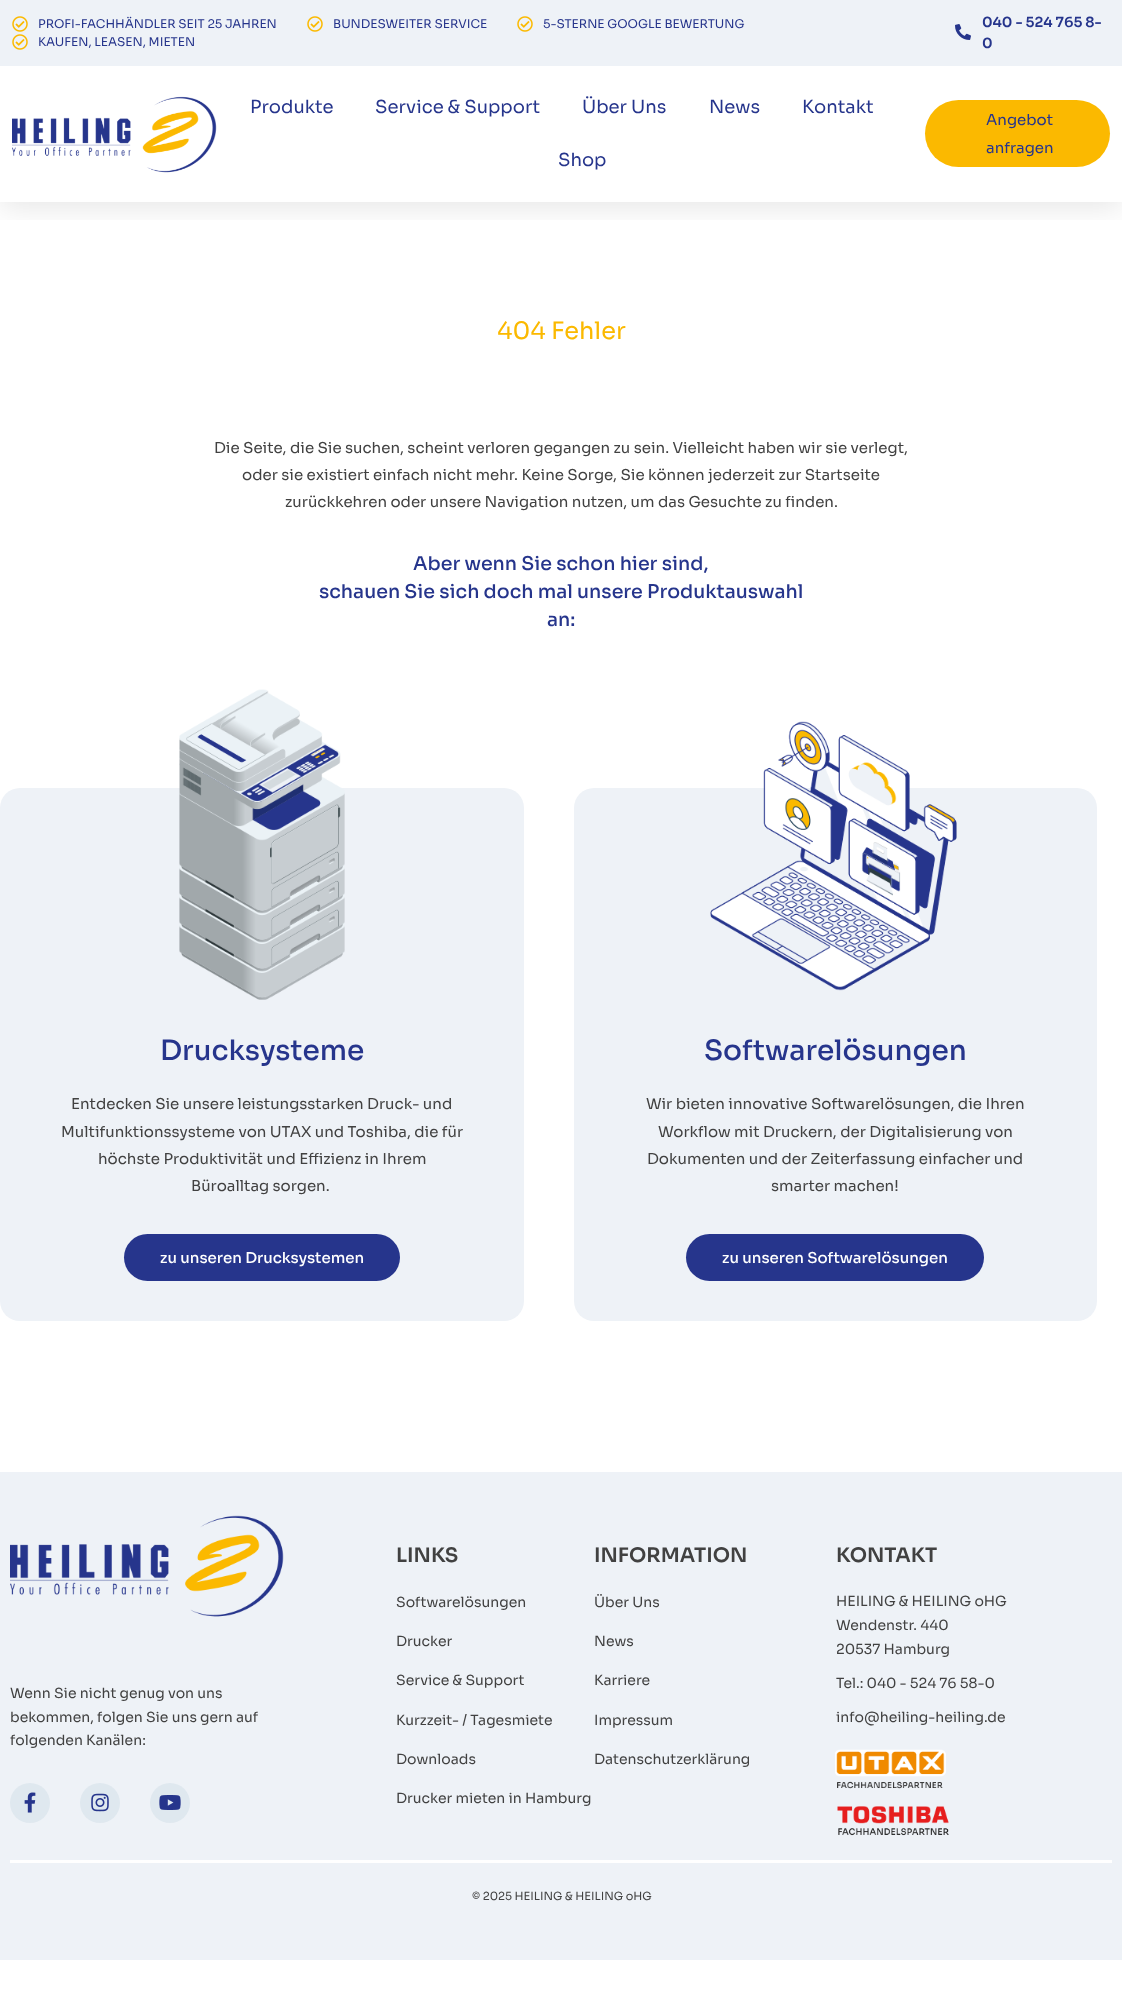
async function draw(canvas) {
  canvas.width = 1122
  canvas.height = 1993
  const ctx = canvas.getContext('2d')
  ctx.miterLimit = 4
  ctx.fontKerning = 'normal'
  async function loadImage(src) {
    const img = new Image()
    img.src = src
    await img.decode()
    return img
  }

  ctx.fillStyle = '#fff'
  ctx.fillRect(0, 0, 1122, 1993)
  ctx.save()
  ctx.beginPath()
  ctx.rect(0, 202, 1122, 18)
  ctx.clip()
  ctx.fillStyle = '#0000001a'
  ctx.filter = 'blur(15px)'
  ctx.beginPath()
  ctx.rect(0, 5, 1122, 202)
  ctx.fill()
  ctx.filter = 'none'
  ctx.restore()
  ctx.fillStyle = '#eef2f7'
  ctx.fillRect(0, 0, 1122, 66)
  ctx.drawImage(await loadImage('image0.png'), 12, 16, 16, 16)
  ctx.font = '12px Sora'
  ctx.fillStyle = '#26358c'
  ctx.fillText('PROFI-FACHHÄNDLER SEIT 25 JAHREN', 38, 28)
  ctx.drawImage(await loadImage('image0.png'), 307, 16, 16, 16)
  ctx.fillText('BUNDESWEITER SERVICE', 333, 28)
  ctx.drawImage(await loadImage('image0.png'), 517, 16, 16, 16)
  ctx.fillText('5-STERNE GOOGLE BEWERTUNG', 543, 28)
  ctx.drawImage(await loadImage('image0.png'), 12, 34, 16, 16)
  ctx.fillText('KAUFEN, LEASEN, MIETEN', 38, 46)
  ctx.drawImage(await loadImage('image1.png'), 955, 24, 16, 16)
  ctx.font = '600 14px Sora'
  ctx.fillText('040 - 524 765 8-', 982, 27)
  ctx.fillText('0', 982, 48)
  ctx.drawImage(await loadImage('image2.png'), 12, 96, 205, 77)
  ctx.font = '18px Sora'
  ctx.fillText('Produkte', 250, 113)
  ctx.fillText('Service & Support', 375, 113)
  ctx.fillText('Über Uns', 582, 113)
  ctx.fillText('News', 709, 113)
  ctx.fillText('Kontakt', 802, 113)
  ctx.fillText('Shop', 558, 166)
  ctx.fillStyle = '#fbb900'
  ctx.beginPath()
  ctx.roundRect(925, 100, 185, 67, 33.5)
  ctx.fill()
  ctx.font = '15px Sora'
  ctx.fillStyle = '#26358c'
  ctx.fillText('Angebot', 986, 125)
  ctx.fillText('anfragen', 986, 153)
  ctx.font = '24px Sora'
  ctx.fillStyle = '#fbb900'
  ctx.fillText('404 Fehler', 497, 339)
  ctx.font = '15px Sora'
  ctx.fillStyle = '#414141'
  ctx.fillText('Die Seite, die Sie suchen, scheint verloren gegangen zu sein. Vielleicht haben wir sie verlegt,', 214, 453)
  ctx.fillText('oder sie existiert einfach nicht mehr. Keine Sorge, Sie können jederzeit zur Startseite', 242, 480)
  ctx.fillText('zurückkehren oder unsere Navigation nutzen, um das Gesuchte zu finden.', 285, 507)
  ctx.font = '500 19px Sora'
  ctx.fillStyle = '#26358c'
  ctx.fillText('Aber wenn Sie schon hier sind,', 413, 570)
  ctx.fillText('schauen Sie sich doch mal unsere Produktauswahl', 319, 598)
  ctx.fillText('an:', 547, 626)
  ctx.fillStyle = '#eef2f7'
  ctx.beginPath()
  ctx.roundRect(0, 788, 524, 533, 20)
  ctx.fill()
  ctx.drawImage(await loadImage('image3.png'), 179, 689, 166, 311)
  ctx.font = '500 28px Sora'
  ctx.fillStyle = '#26358c'
  ctx.fillText('Drucksysteme', 160, 1060)
  ctx.font = '15px Sora'
  ctx.fillStyle = '#414141'
  ctx.fillText('Entdecken Sie unsere leistungsstarken Druck- und', 71, 1109)
  ctx.fillText('Multifunktionssysteme von UTAX und Toshiba, die für', 61, 1137)
  ctx.fillText('höchste Produktivität und Effizienz in Ihrem', 98, 1164)
  ctx.fillText('Büroalltag sorgen.', 191, 1191)
  ctx.fillStyle = '#26358c'
  ctx.beginPath()
  ctx.roundRect(124, 1234, 276, 47, 23.5)
  ctx.fill()
  ctx.font = '500 15px Sora'
  ctx.fillStyle = '#fff'
  ctx.fillText('zu unseren Drucksystemen', 160, 1263)
  ctx.fillStyle = '#eef2f7'
  ctx.beginPath()
  ctx.roundRect(574, 788, 523, 533, 20)
  ctx.fill()
  ctx.drawImage(await loadImage('image4.png'), 710, 721, 247, 270)
  ctx.font = '500 28px Sora'
  ctx.fillStyle = '#26358c'
  ctx.fillText('Softwarelösungen', 704, 1060)
  ctx.font = '15px Sora'
  ctx.fillStyle = '#414141'
  ctx.fillText('Wir bieten innovative Softwarelösungen, die Ihren', 646, 1109)
  ctx.fillText('Workflow mit Druckern, der Digitalisierung von', 658, 1137)
  ctx.fillText('Dokumenten und der Zeiterfassung einfacher und', 647, 1164)
  ctx.fillText('smarter machen!', 771, 1191)
  ctx.fillStyle = '#26358c'
  ctx.beginPath()
  ctx.roundRect(686, 1234, 298, 47, 23.5)
  ctx.fill()
  ctx.font = '500 15px Sora'
  ctx.fillStyle = '#fff'
  ctx.fillText('zu unseren Softwarelösungen', 722, 1263)
  ctx.fillStyle = '#eef2f7'
  ctx.fillRect(0, 1472, 1122, 488)
  ctx.drawImage(await loadImage('image5.png'), 10, 1515, 274, 102)
  ctx.font = '14px Sora'
  ctx.fillStyle = '#414141'
  ctx.fillText('Wenn Sie nicht genug von uns', 10, 1698)
  ctx.fillText('bekommen, folgen Sie uns gern auf', 10, 1722)
  ctx.fillText('folgenden Kanälen:', 10, 1745)
  ctx.fillStyle = '#dfe8ef'
  ctx.beginPath()
  ctx.arc(30, 1803, 20, 0, 2 * Math.PI)
  ctx.fill()
  ctx.drawImage(await loadImage('image6.png'), 24, 1792, 12, 21)
  ctx.beginPath()
  ctx.arc(100, 1803, 20, 0, 2 * Math.PI)
  ctx.fill()
  ctx.drawImage(await loadImage('image7.png'), 91, 1793, 18, 19)
  ctx.beginPath()
  ctx.arc(170, 1803, 20, 0, 2 * Math.PI)
  ctx.fill()
  ctx.drawImage(await loadImage('image8.png'), 159, 1795, 22, 15)
  ctx.font = '600 20px Sora'
  ctx.fillStyle = '#414141'
  ctx.fillText('LINKS', 396, 1562)
  ctx.font = '14px Sora'
  ctx.fillText('Softwarelösungen', 396, 1607)
  ctx.fillText('Drucker', 396, 1646)
  ctx.fillText('Service & Support', 396, 1685)
  ctx.fillText('Kurzzeit- / Tagesmiete', 396, 1725)
  ctx.fillText('Downloads', 396, 1764)
  ctx.fillText('Drucker mieten in Hamburg', 396, 1803)
  ctx.font = '600 20px Sora'
  ctx.fillText('INFORMATION', 594, 1562)
  ctx.font = '14px Sora'
  ctx.fillText('Über Uns', 594, 1607)
  ctx.fillText('News', 594, 1646)
  ctx.fillText('Karriere', 594, 1685)
  ctx.fillText('Impressum', 594, 1725)
  ctx.fillText('Datenschutzerklärung', 594, 1764)
  ctx.font = '600 20px Sora'
  ctx.fillText('KONTAKT', 836, 1562)
  ctx.font = '14px Sora'
  ctx.fillText('HEILING & HEILING oHG', 836, 1606)
  ctx.fillText('Wendenstr. 440', 836, 1630)
  ctx.fillText('20537 Hamburg', 836, 1654)
  ctx.fillText('Tel.: 040 - 524 76 58-0', 836, 1688)
  ctx.fillText('info@heiling-heiling.de', 836, 1722)
  ctx.drawImage(await loadImage('image9.png'), 835, 1749, 111, 40)
  ctx.drawImage(await loadImage('image10.png'), 837, 1806, 112, 30)
  ctx.fillStyle = '#fff'
  ctx.fillRect(10, 1860, 1102, 3)
  ctx.font = '11.25px Sora'
  ctx.fillStyle = '#414141'
  ctx.fillText('© 2025 HEILING & HEILING oHG', 472, 1900)
}

draw(document.querySelector('canvas'))
